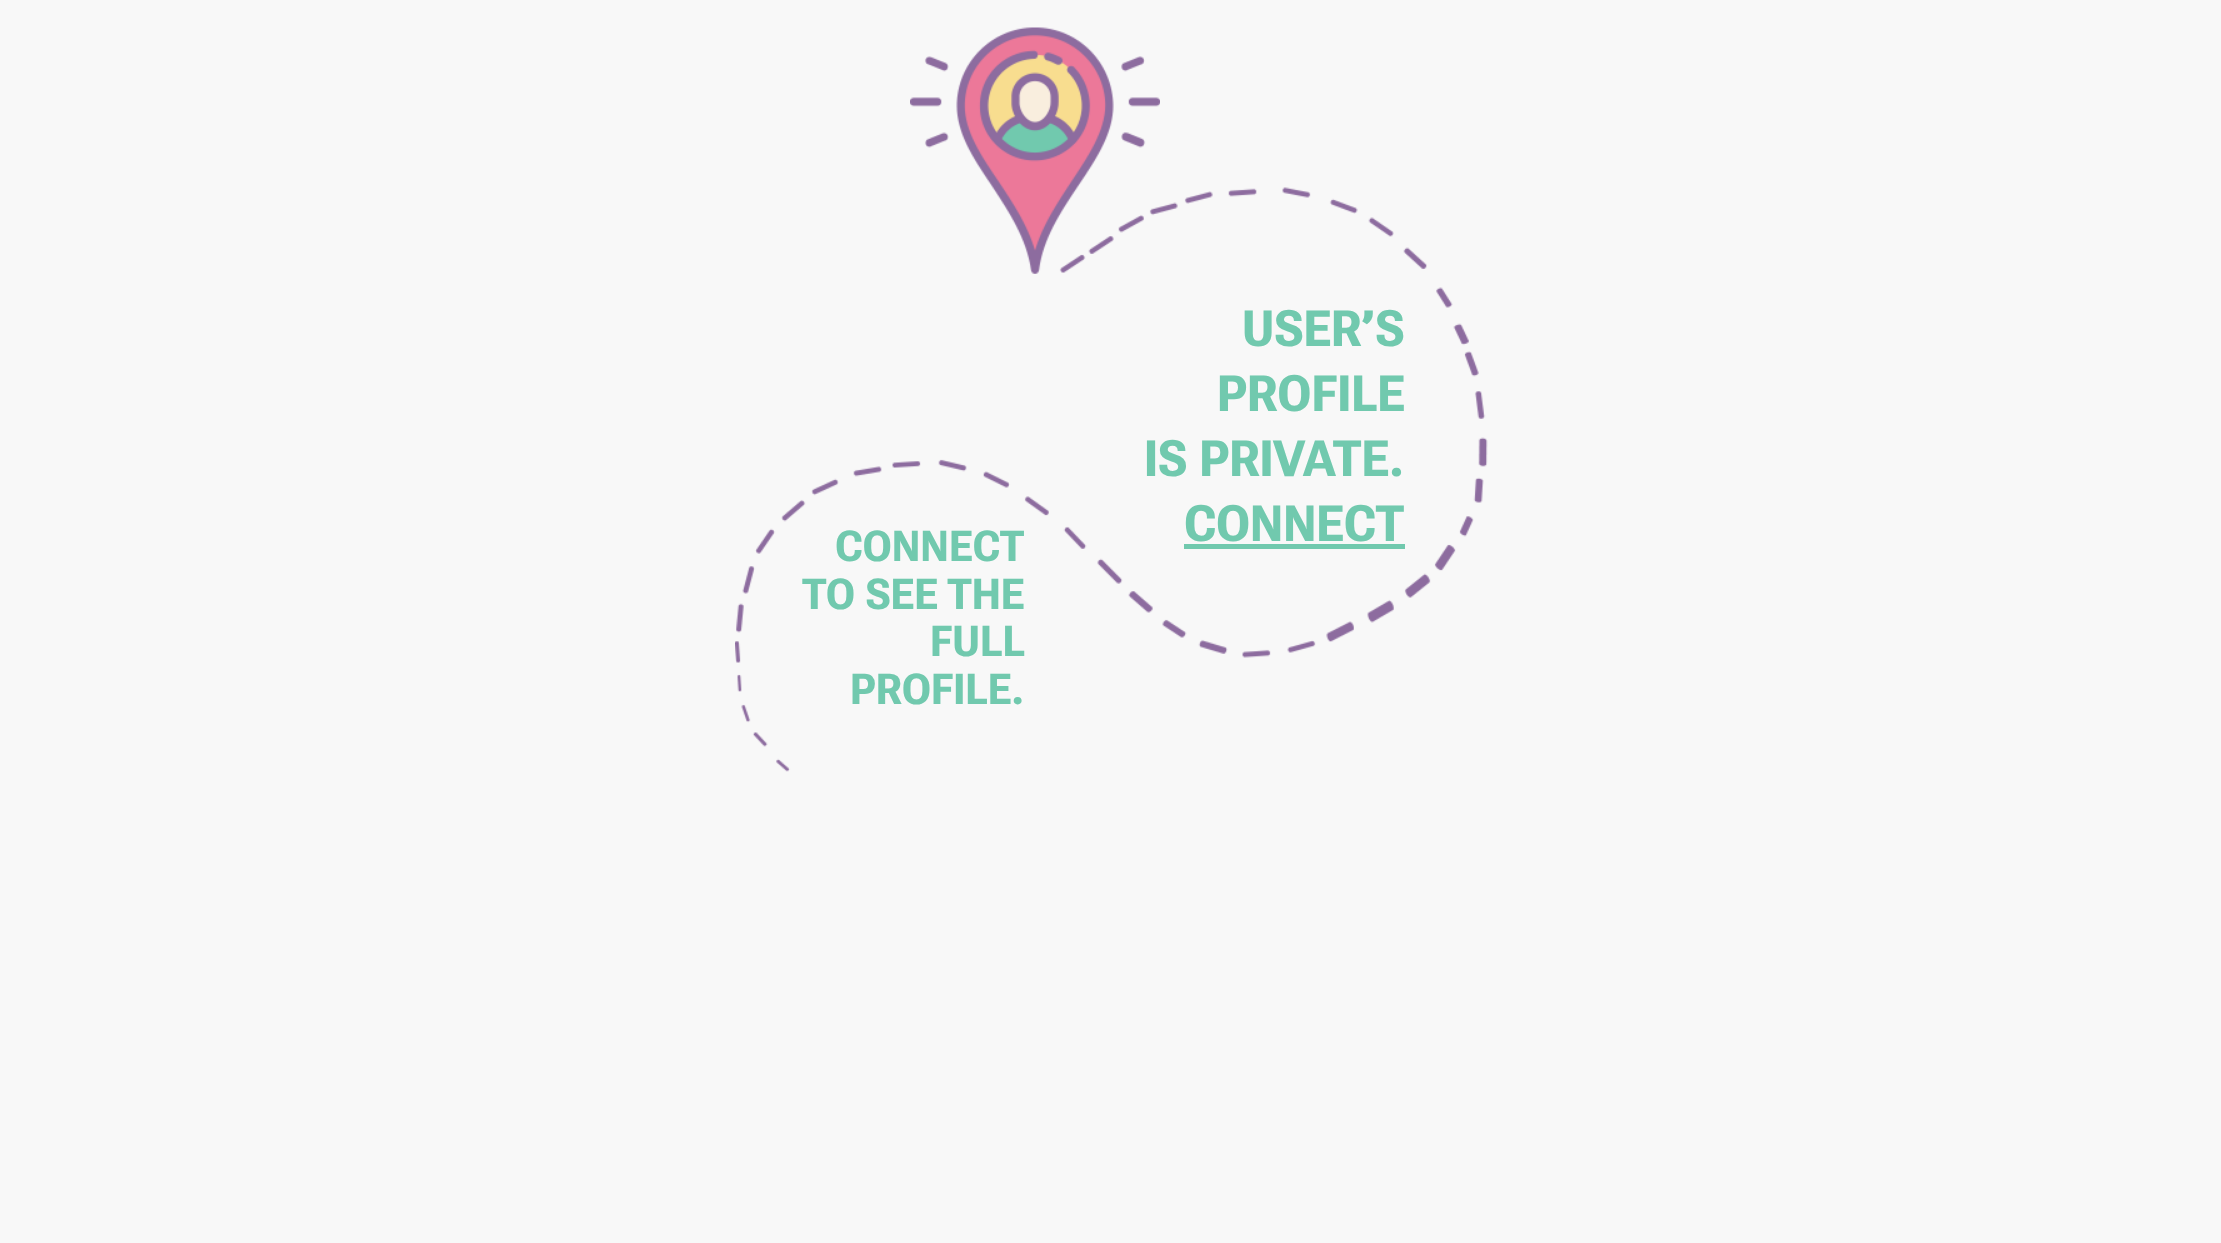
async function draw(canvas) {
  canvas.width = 2221
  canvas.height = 1243
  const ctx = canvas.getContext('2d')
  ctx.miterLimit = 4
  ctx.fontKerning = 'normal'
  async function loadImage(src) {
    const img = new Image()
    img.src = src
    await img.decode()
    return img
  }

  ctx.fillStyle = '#f8f8f8'
  ctx.fillRect(0, 0, 2221, 1243)
  ctx.drawImage(await loadImage('image0.png'), 735, 187, 753, 585)
  ctx.drawImage(await loadImage('image1.png'), 910, 27, 250, 247)
  ctx.font = 'bold 50px Roboto Flex'
  ctx.fillStyle = '#71c9ae'
  ctx.fillText('USER’S', 1242, 346)
  ctx.fillText('PROFILE', 1217, 411)
  ctx.fillText('IS PRIVATE.', 1144, 476)
  ctx.fillText('CONNECT', 1184, 541)
  ctx.fillRect(1184, 544, 221, 5)
  ctx.font = 'bold 42.5px "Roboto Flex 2"'
  ctx.fillText('CONNECT', 835, 561)
  ctx.fillText('TO SEE THE', 802, 609)
  ctx.fillText('FULL', 930, 656)
  ctx.fillText('PROFILE.', 850, 704)
}

draw(document.querySelector('canvas'))
